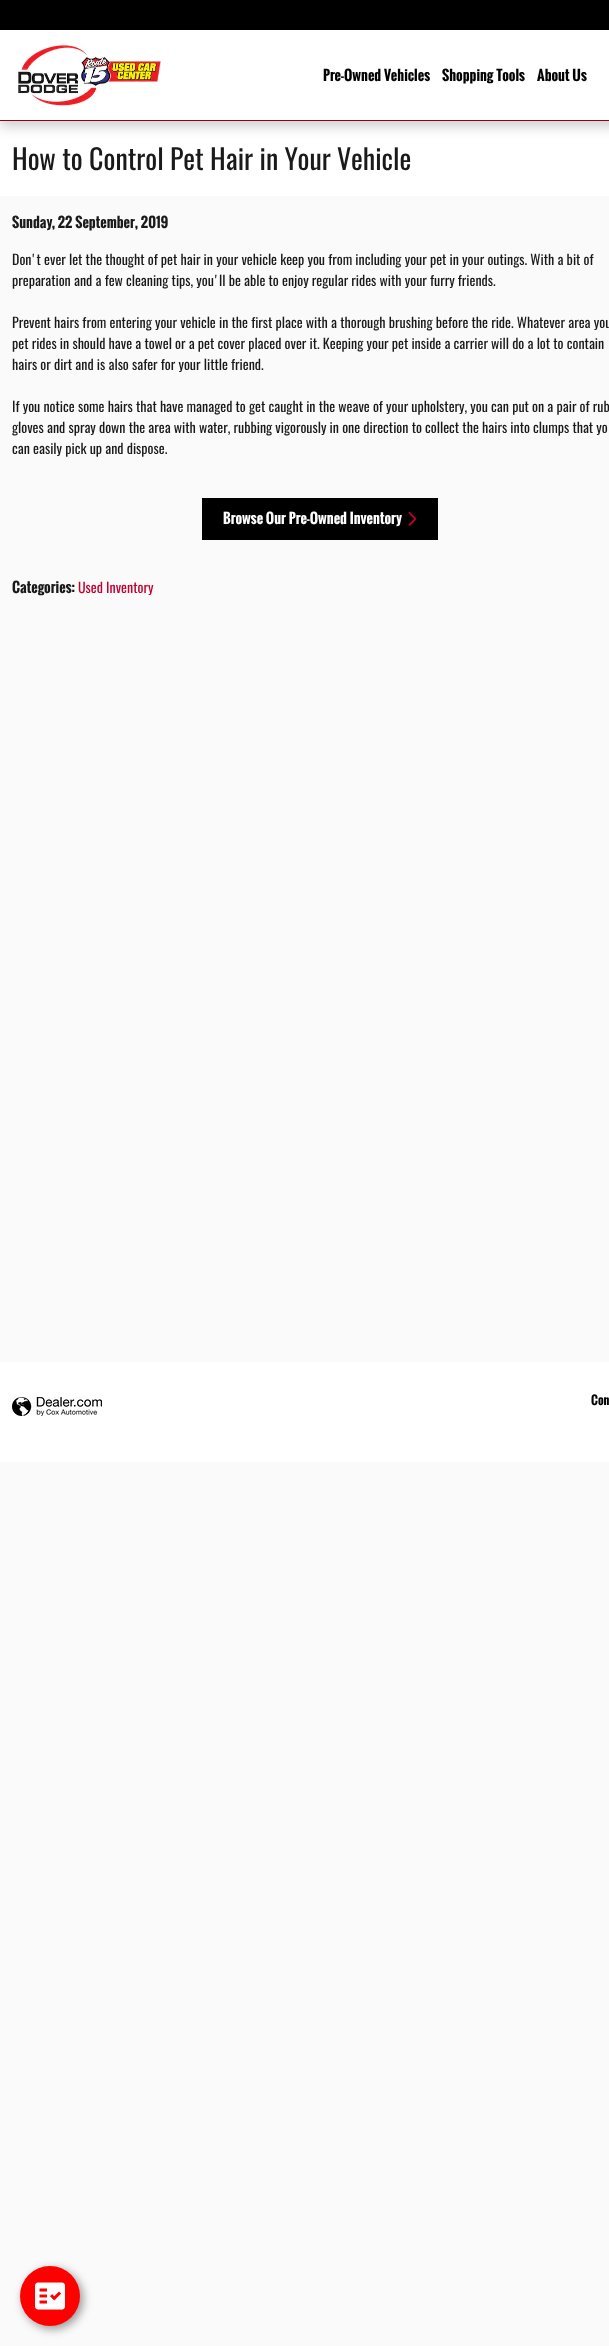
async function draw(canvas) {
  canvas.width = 609
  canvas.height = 2346
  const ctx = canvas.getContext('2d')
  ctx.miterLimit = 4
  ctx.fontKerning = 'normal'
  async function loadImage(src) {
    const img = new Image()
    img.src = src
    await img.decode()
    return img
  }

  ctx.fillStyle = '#fafafa'
  ctx.fillRect(0, 0, 609, 2346)
  ctx.fillStyle = '#fff'
  ctx.fillRect(0, 121, 609, 75)
  ctx.fillStyle = '#0000002e'
  ctx.filter = 'blur(6px)'
  ctx.beginPath()
  ctx.rect(0, 6, 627, 121)
  ctx.fill()
  ctx.filter = 'none'
  ctx.fillStyle = '#fff'
  ctx.fillRect(0, 30, 609, 90)
  ctx.fillStyle = '#90001d'
  ctx.fillRect(0, 120, 609, 1)
  ctx.fillStyle = '#000'
  ctx.fillRect(0, 0, 609, 30)
  ctx.drawImage(await loadImage('image0.png'), 18, 43, 143, 63)
  ctx.font = 'bold 14px Oswald'
  ctx.fillText('Pre-Owned Vehicles', 323, 81)
  ctx.fillText('Shopping Tools', 442, 81)
  ctx.fillText('About Us', 537, 81)
  ctx.font = '28px Oswald'
  ctx.fillStyle = '#1a1a1a'
  ctx.fillText('How to Control Pet Hair in Your Vehicle', 12, 170)
  ctx.font = 'bold 14px Oswald'
  ctx.fillText('Sunday, 22 September, 2019', 12, 228)
  ctx.font = '14px Oswald'
  ctx.fillText('Don\'t ever let the thought of pet hair in your vehicle keep you from including your pet in your outings. With a bit of', 12, 265)
  ctx.fillText('preparation and a few cleaning tips, you\'ll be able to enjoy regular rides with your furry friends.', 12, 286)
  ctx.fillText('Prevent hairs from entering your vehicle in the first place with a thorough brushing before the ride. Whatever area you', 12, 328)
  ctx.fillText('pet rides in should have a towel or a pet cover placed over it. Keeping your pet inside a carrier will do a lot to contain', 12, 349)
  ctx.fillText('hairs or dirt and is also safer for your little friend.', 12, 370)
  ctx.fillText('If you notice some hairs that have managed to get caught in the weave of your upholstery, you can put on a pair of rub', 12, 412)
  ctx.fillText('gloves and spray down the area with water, rubbing vigorously in one direction to collect the hairs into clumps that yo', 12, 433)
  ctx.fillText('can easily pick up and dispose.', 12, 454)
  ctx.fillStyle = '#000'
  ctx.fillRect(202, 498, 236, 42)
  ctx.font = 'bold 14px Oswald'
  ctx.fillStyle = '#fff'
  ctx.fillText('Browse Our Pre-Owned Inventory', 223, 524)
  ctx.drawImage(await loadImage('image1.png'), 408, 511, 8, 15)
  ctx.fillStyle = '#1a1a1a'
  ctx.fillText('Categories:', 12, 593)
  ctx.font = '14px Oswald'
  ctx.fillStyle = '#c3002f'
  ctx.fillText('Used Inventory', 78, 593)
  ctx.fillStyle = '#fff'
  ctx.fillRect(0, 1362, 609, 100)
  ctx.drawImage(await loadImage('image2.png'), 12, 1397, 90, 19)
  ctx.font = 'bold 12px Oswald'
  ctx.fillStyle = '#000'
  ctx.fillText('Con', 591, 1405)
  ctx.fillStyle = '#00000066'
  ctx.filter = 'blur(5px)'
  ctx.beginPath()
  ctx.roundRect(23, 2269, 60, 60, 30)
  ctx.fill()
  ctx.filter = 'none'
  ctx.fillStyle = '#f00'
  ctx.beginPath()
  ctx.arc(50, 2296, 30, 0, 2 * Math.PI)
  ctx.fill()
  ctx.drawImage(await loadImage('image3.png'), 35, 2282, 30, 28)
}

draw(document.querySelector('canvas'))
